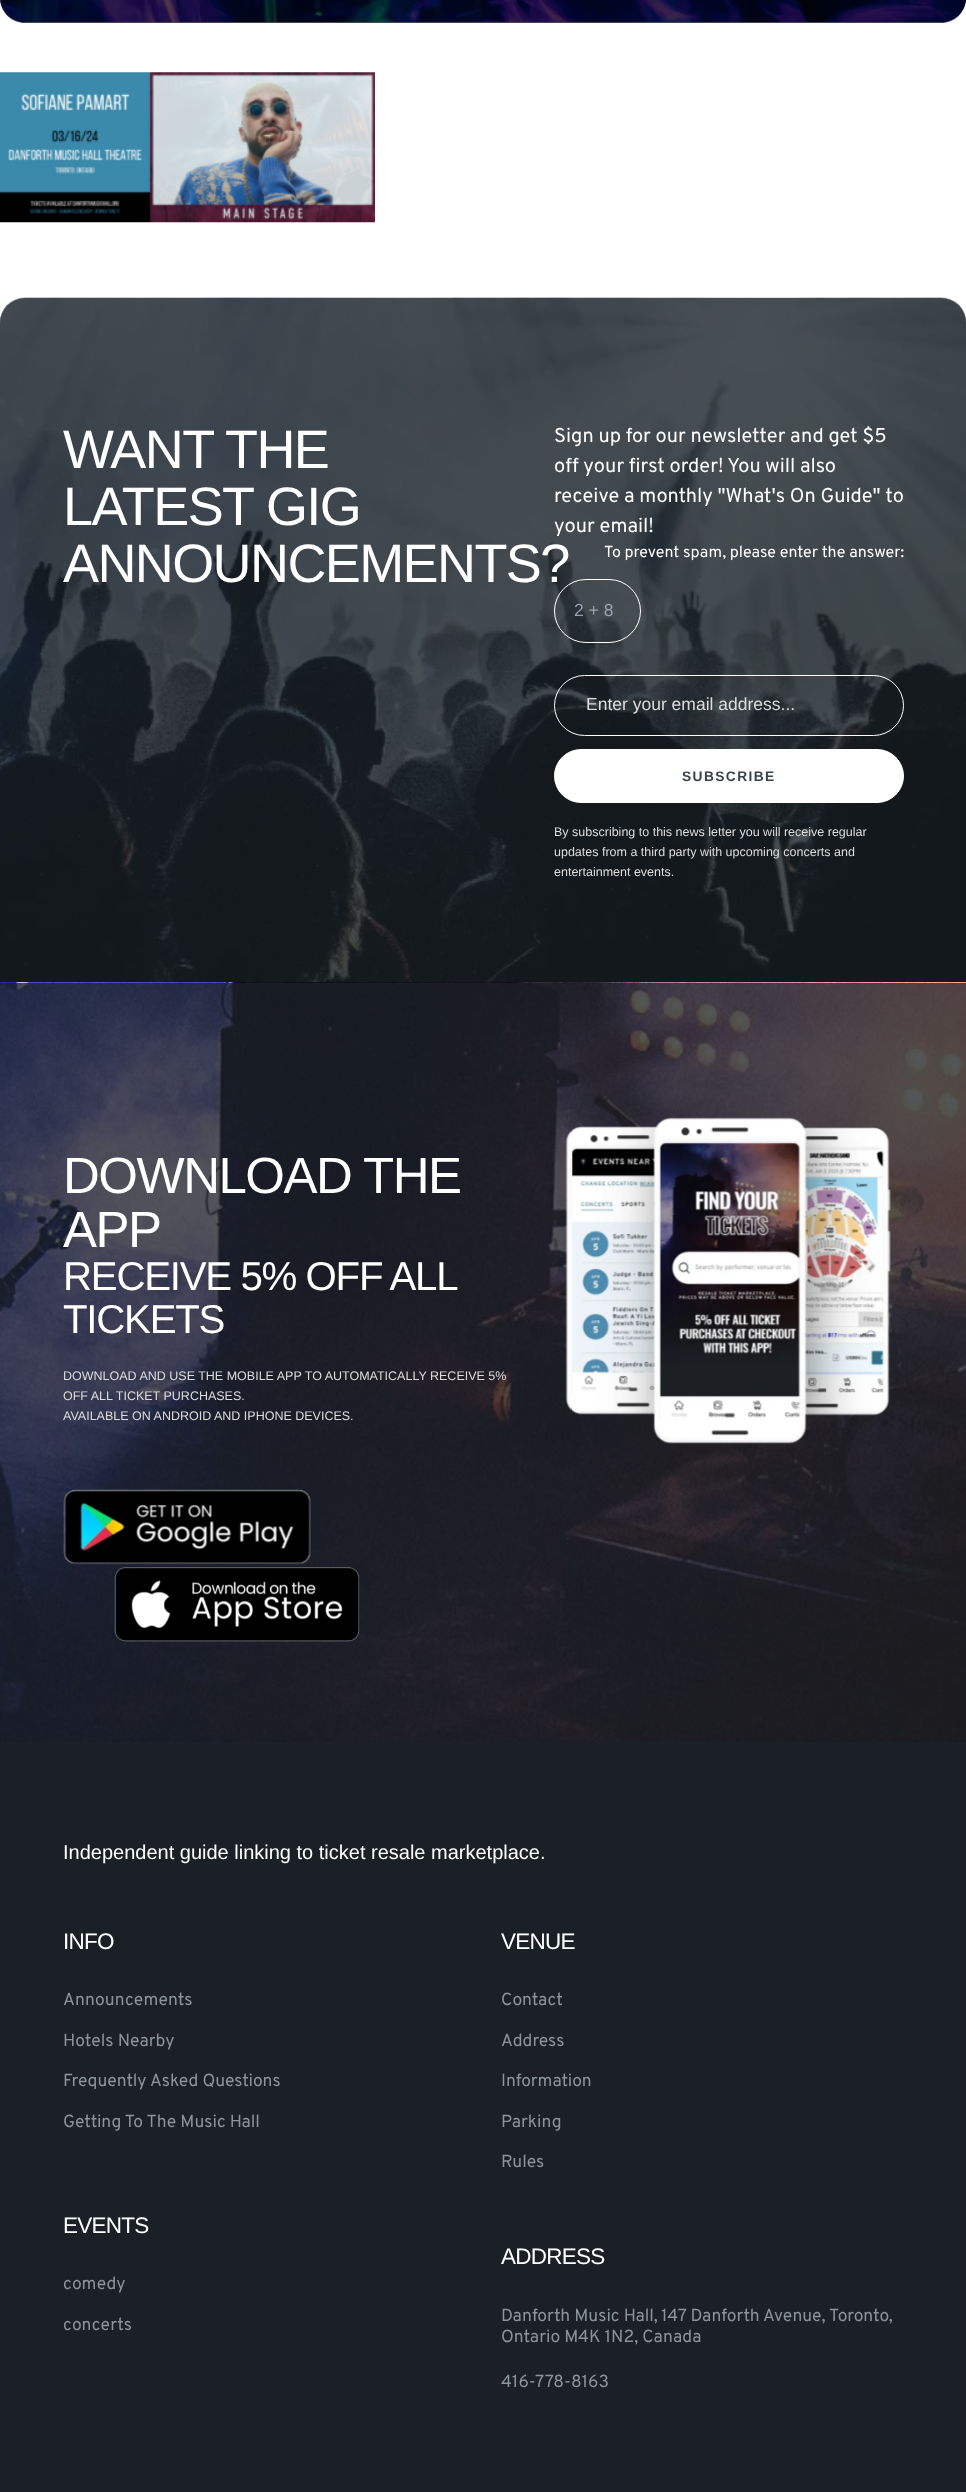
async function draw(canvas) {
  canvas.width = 966
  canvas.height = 2492
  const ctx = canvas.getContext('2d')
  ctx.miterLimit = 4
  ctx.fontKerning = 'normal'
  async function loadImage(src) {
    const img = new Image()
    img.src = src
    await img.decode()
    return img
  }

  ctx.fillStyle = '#fff'
  ctx.fillRect(0, 0, 966, 2492)
  ctx.drawImage(await loadImage('image0.png'), 0, 0, 966, 23)
  ctx.fillStyle = '#000000b3'
  ctx.beginPath()
  ctx.moveTo(0, -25)
  ctx.lineTo(966, -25)
  ctx.lineTo(966, -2)
  ctx.bezierCurveTo(966, 12, 955, 23, 941, 23)
  ctx.lineTo(25, 23)
  ctx.bezierCurveTo(11, 23, 0, 12, 0, -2)
  ctx.closePath()
  ctx.fill()
  ctx.drawImage(await loadImage('image1.png'), 0, 72, 375, 151)
  ctx.fillStyle = '#1a2026'
  ctx.beginPath()
  ctx.moveTo(25, 298)
  ctx.lineTo(941, 298)
  ctx.bezierCurveTo(955, 298, 966, 309, 966, 323)
  ctx.lineTo(966, 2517)
  ctx.lineTo(0, 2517)
  ctx.lineTo(0, 323)
  ctx.bezierCurveTo(0, 309, 11, 298, 25, 298)
  ctx.closePath()
  ctx.fill()
  ctx.drawImage(await loadImage('image2.png'), 0, 297, 966, 685)
  ctx.fillStyle = '#1a2026bf'
  ctx.beginPath()
  ctx.roundRect(0, 298, 966, 685, [25, 25, 0, 0])
  ctx.fill()
  ctx.letterSpacing = '-1.6px'
  ctx.font = '54px Liberation Sans'
  ctx.fillStyle = '#fff'
  ctx.fillText('WANT THE', 63, 468)
  ctx.fillText('LATEST GIG', 63, 525)
  ctx.beginPath()
  ctx.roundRect(554.5, 579.5, 86, 63, 31.5)
  ctx.strokeStyle = '#fff'
  ctx.stroke()
  ctx.fillText('ANNOUNCEMENTS?', 63, 582)
  ctx.letterSpacing = '0px'
  ctx.font = '20px Overpass'
  ctx.fillText('Sign up for our newsletter and get $5', 554, 442)
  ctx.fillText('off your first order! You will also', 554, 472)
  ctx.fillText('receive a monthly "What\'s On Guide" to', 554, 502)
  ctx.fillText('your email!', 554, 532)
  ctx.font = '16px Overpass'
  ctx.fillText('To prevent spam, please enter the answer:', 604, 557)
  ctx.font = '17.5px Liberation Sans'
  ctx.fillStyle = '#9ca3af'
  ctx.fillText('2 + 8', 574, 616)
  ctx.beginPath()
  ctx.roundRect(554.5, 675.5, 349, 60, 30)
  ctx.stroke()
  ctx.fillStyle = '#ddd'
  ctx.fillText('Enter your email address...', 586, 710)
  ctx.fillStyle = '#fff'
  ctx.beginPath()
  ctx.roundRect(554.5, 749.5, 349, 53, 26.5)
  ctx.fill()
  ctx.stroke()
  ctx.letterSpacing = '1.4px'
  ctx.font = 'bold 13.75px Liberation Sans'
  ctx.fillStyle = '#364351'
  ctx.fillText('SUBSCRIBE', 682, 781)
  ctx.letterSpacing = '0px'
  ctx.font = '12.5px Liberation Sans'
  ctx.fillStyle = '#ddd'
  ctx.fillText('By subscribing to this news letter you will receive regular', 554, 836)
  ctx.fillText('updates from a third party with upcoming concerts and', 554, 856)
  ctx.fillText('entertainment events.', 554, 876)
  ctx.drawImage(await loadImage('image3.png'), 0, 982, 966, 760)
  ctx.letterSpacing = '-1.5px'
  ctx.font = '51px Liberation Sans'
  ctx.fillStyle = '#fff'
  ctx.fillText('DOWNLOAD THE', 63, 1193)
  ctx.fillText('APP', 63, 1247)
  ctx.letterSpacing = '-1.25px'
  ctx.wordSpacing = '-0.5px'
  ctx.font = '40.25px Liberation Sans'
  ctx.fillText('RECEIVE 5% OFF ALL', 63, 1290)
  ctx.wordSpacing = '0px'
  ctx.fillText('TICKETS', 63, 1333)
  ctx.letterSpacing = '0px'
  ctx.font = '12.5px Liberation Sans'
  ctx.fillStyle = '#ddd'
  ctx.fillText('DOWNLOAD AND USE THE MOBILE APP TO AUTOMATICALLY RECEIVE 5%', 63, 1380)
  ctx.fillText('OFF ALL TICKET PURCHASES.', 63, 1400)
  ctx.fillText('AVAILABLE ON ANDROID AND IPHONE DEVICES.', 63, 1420)
  ctx.drawImage(await loadImage('image4.png'), 63, 1489, 248, 76)
  ctx.drawImage(await loadImage('image5.png'), 114, 1567, 246, 75)
  ctx.drawImage(await loadImage('image6.png'), 565, 1117, 326, 327)
  ctx.font = '20px Liberation Sans'
  ctx.fillStyle = '#fff'
  ctx.fillText('Independent guide linking to ticket resale marketplace.', 63, 1859)
  ctx.letterSpacing = '-0.75px'
  ctx.font = '22.5px Liberation Sans'
  ctx.fillText('INFO', 63, 1949)
  ctx.letterSpacing = '0px'
  ctx.font = '17.5px Overpass'
  ctx.fillStyle = '#8c949b'
  ctx.fillText('Announcements', 63, 2005)
  ctx.fillText('Hotels Nearby', 63, 2046)
  ctx.fillText('Frequently Asked Questions', 63, 2086)
  ctx.fillText('Getting To The Music Hall', 63, 2127)
  ctx.letterSpacing = '-0.75px'
  ctx.font = '22.5px Liberation Sans'
  ctx.fillStyle = '#fff'
  ctx.fillText('VENUE', 501, 1949)
  ctx.letterSpacing = '0px'
  ctx.font = '17.5px Overpass'
  ctx.fillStyle = '#8c949b'
  ctx.fillText('Contact', 501, 2005)
  ctx.fillText('Address', 501, 2046)
  ctx.fillText('Information', 501, 2086)
  ctx.fillText('Parking', 501, 2127)
  ctx.fillText('Rules', 501, 2167)
  ctx.letterSpacing = '-0.75px'
  ctx.font = '22.5px Liberation Sans'
  ctx.fillStyle = '#fff'
  ctx.fillText('EVENTS', 63, 2233)
  ctx.letterSpacing = '0px'
  ctx.font = '17.5px Overpass'
  ctx.fillStyle = '#8c949b'
  ctx.fillText('comedy', 63, 2289)
  ctx.fillText('concerts', 63, 2330)
  ctx.letterSpacing = '-0.75px'
  ctx.font = '22.5px Liberation Sans'
  ctx.fillStyle = '#fff'
  ctx.fillText('ADDRESS', 501, 2264)
  ctx.letterSpacing = '0px'
  ctx.font = '17.5px Overpass'
  ctx.fillStyle = '#8c949b'
  ctx.fillText('Danforth Music Hall,', 501, 2321)
  ctx.fillText('147 Danforth Avenue,', 661, 2321)
  ctx.fillText('Toronto,', 829, 2321)
  ctx.fillText('Ontario M4K 1N2, Canada', 501, 2342)
  ctx.fillText('416-778-8163', 501, 2387)
}

draw(document.querySelector('canvas'))
